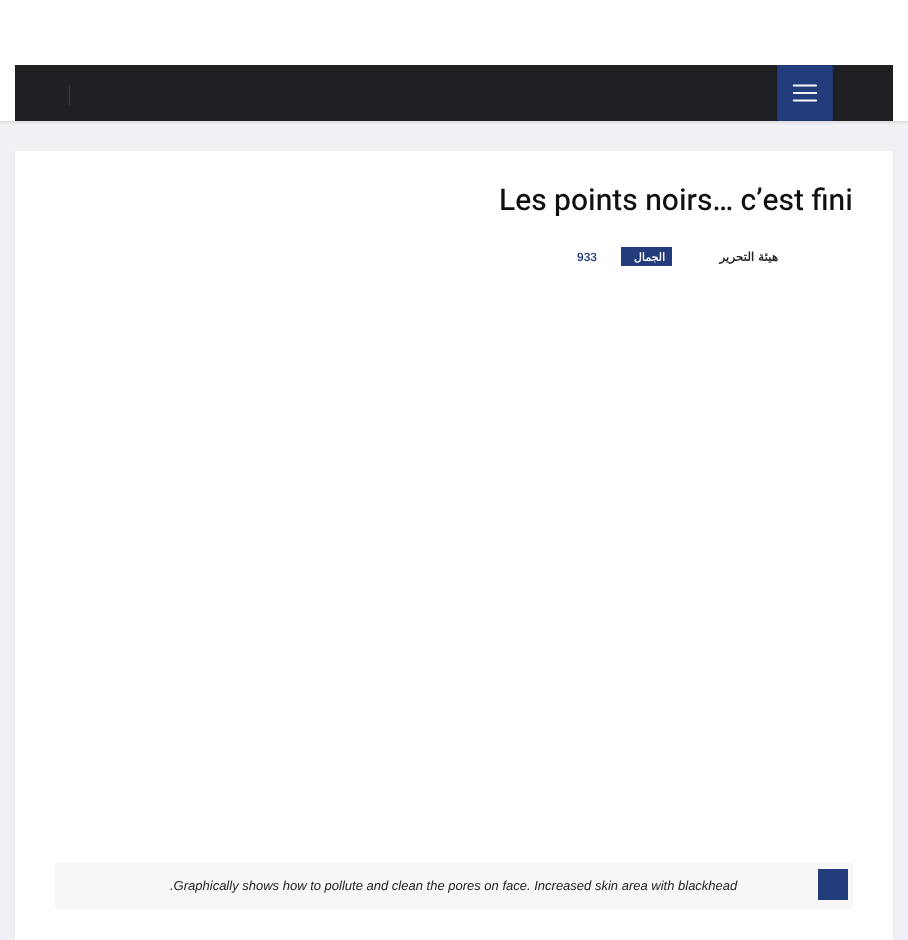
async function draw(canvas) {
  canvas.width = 908
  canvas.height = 940
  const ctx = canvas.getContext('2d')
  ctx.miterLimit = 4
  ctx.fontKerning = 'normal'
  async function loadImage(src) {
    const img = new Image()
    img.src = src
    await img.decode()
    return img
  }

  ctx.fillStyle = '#f0f1f4'
  ctx.fillRect(0, 0, 908, 940)
  ctx.fillStyle = '#fff'
  ctx.fillRect(0, 0, 908, 65)
  ctx.fillStyle = '#00000014'
  ctx.filter = 'blur(1px)'
  ctx.beginPath()
  ctx.rect(0, 67, 908, 56)
  ctx.fill()
  ctx.filter = 'none'
  ctx.fillStyle = '#fff'
  ctx.fillRect(0, 65, 908, 56)
  ctx.fillStyle = '#1f2024'
  ctx.fillRect(15, 65, 878, 56)
  ctx.fillStyle = '#223c7c'
  ctx.beginPath()
  ctx.rect(777.5, 65.5, 55, 55)
  ctx.fill()
  ctx.strokeStyle = '#1f3670'
  ctx.stroke()
  ctx.drawImage(await loadImage('image0.png'), 792, 84, 26, 18)
  ctx.fillStyle = '#3c3c3c'
  ctx.fillRect(69, 85, 1, 20)
  ctx.fillStyle = '#00000014'
  ctx.filter = 'blur(1px)'
  ctx.beginPath()
  ctx.rect(15, 153, 878, 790)
  ctx.fill()
  ctx.filter = 'none'
  ctx.fillStyle = '#fff'
  ctx.fillRect(15, 151, 878, 789)
  ctx.font = '500 30px Heebo'
  ctx.fillStyle = '#101010'
  ctx.fillText('Les points noirs… c’est fini', 499, 210)
  ctx.font = '600 12px Arimo'
  ctx.fillStyle = '#223c7c'
  ctx.fillText('933', 577, 261)
  ctx.fillRect(621, 247, 51, 19)
  ctx.letterSpacing = '0.5px'
  ctx.direction = 'rtl'
  ctx.font = 'bold 11px DejaVu Sans'
  ctx.fillStyle = '#fff'
  ctx.fillText('الجمال', 665, 261)
  ctx.letterSpacing = '0px'
  ctx.font = 'bold 12px DejaVu Sans'
  ctx.fillStyle = '#232323'
  ctx.fillText('هيئة التحرير', 778, 261)
  ctx.fillStyle = '#f7f7f7'
  ctx.fillRect(55, 863, 798, 46)
  ctx.direction = 'ltr'
  ctx.font = 'italic 13px Arimo'
  ctx.fillStyle = '#232323'
  ctx.fillText('.Graphically shows how to pollute and clean the pores on face. Increased skin area with blackhead', 170, 890)
  ctx.fillStyle = '#223c7c'
  ctx.fillRect(818, 869, 30, 31)
}

draw(document.querySelector('canvas'))
